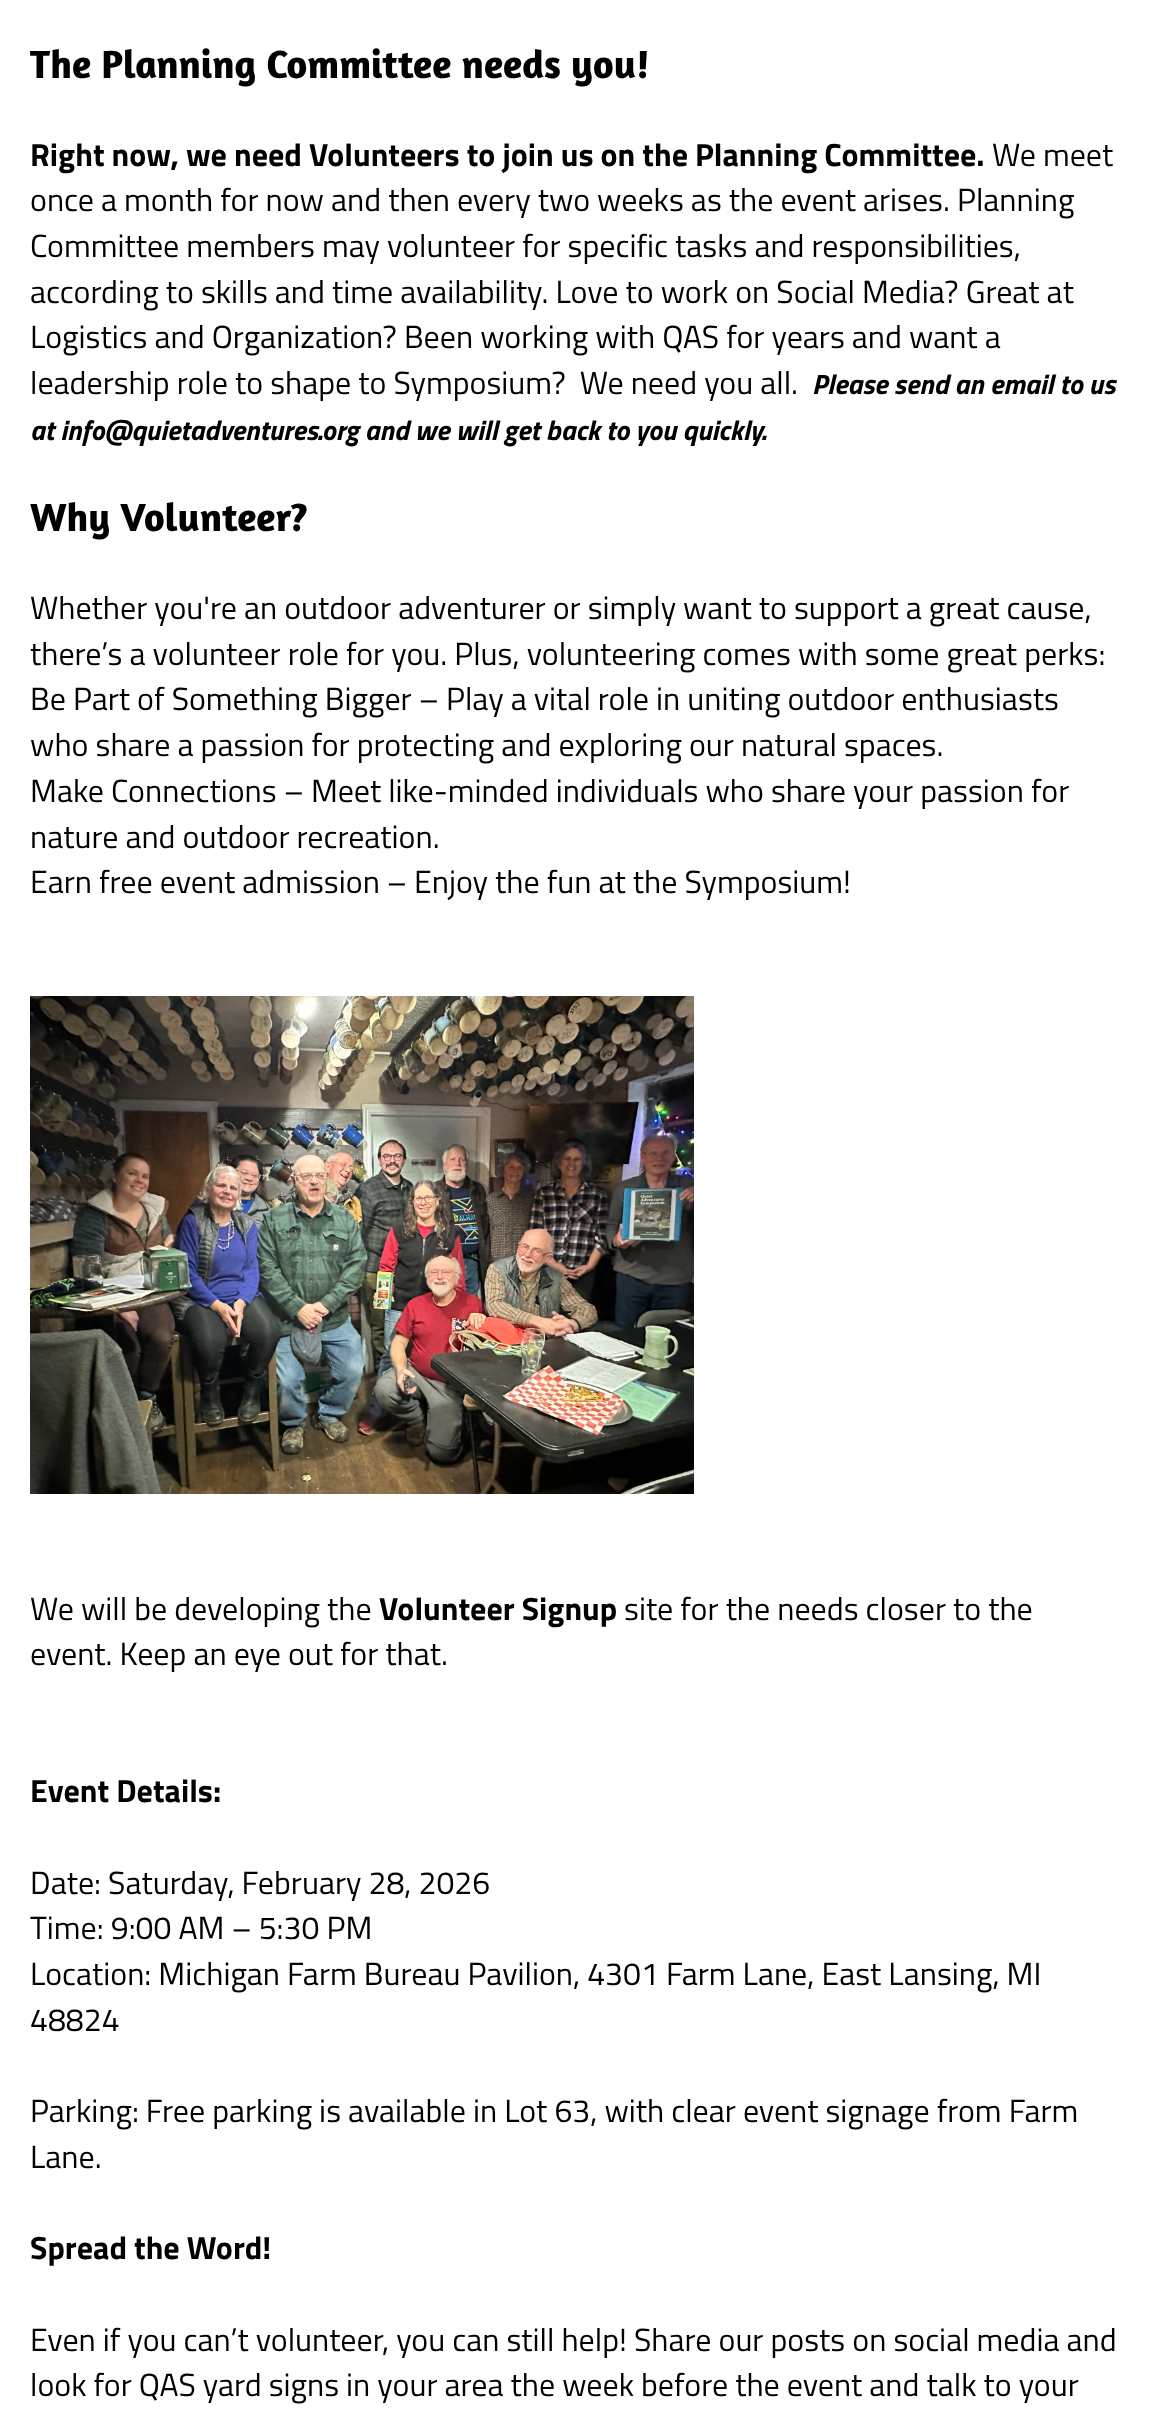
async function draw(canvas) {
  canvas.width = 1150
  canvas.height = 2423
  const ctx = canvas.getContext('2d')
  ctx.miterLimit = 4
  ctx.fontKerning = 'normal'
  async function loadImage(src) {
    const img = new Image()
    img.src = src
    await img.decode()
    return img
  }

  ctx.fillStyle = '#fff'
  ctx.fillRect(0, 0, 1150, 2423)
  ctx.font = 'bold 40px Amaranth'
  ctx.fillStyle = '#000'
  ctx.fillText('The Planning Committee needs you!', 30, 78)
  ctx.font = 'bold 32px Titillium Web'
  ctx.fillText('Right now, we need Volunteers to join us on the Planning Committee.', 30, 166)
  ctx.font = '32px Titillium Web'
  ctx.fillText('We meet', 992, 166)
  ctx.fillText('once a month for now and then every two weeks as the event arises. Planning', 30, 211)
  ctx.fillText('Committee members may volunteer for specific tasks and responsibilities,', 30, 257)
  ctx.fillText('according to skills and time availability. Love to work on Social Media? Great at', 30, 303)
  ctx.fillText('Logistics and Organization? Been working with QAS for years and want a', 30, 348)
  ctx.fillText('leadership role to shape to Symposium?  We need you all.', 30, 394)
  ctx.font = 'italic bold 28px Titillium Web'
  ctx.fillText('Please send an email to us', 812, 394)
  ctx.fillText('at info@quietadventures.org and we will get back to you quickly.', 30, 440)
  ctx.font = 'bold 40px Amaranth'
  ctx.fillText('Why Volunteer?', 30, 531)
  ctx.font = '32px Titillium Web'
  ctx.fillText('Whether you\'re an outdoor adventurer or simply want to support a great cause,', 30, 619)
  ctx.fillText('there’s a volunteer role for you. Plus, volunteering comes with some great perks:', 30, 665)
  ctx.fillText('Be Part of Something Bigger – Play a vital role in uniting outdoor enthusiasts', 30, 710)
  ctx.fillText('who share a passion for protecting and exploring our natural spaces.', 30, 756)
  ctx.fillText('Make Connections – Meet like-minded individuals who share your passion for', 30, 802)
  ctx.fillText('nature and outdoor recreation.', 30, 848)
  ctx.fillText('Earn free event admission – Enjoy the fun at the Symposium!', 30, 893)
  ctx.drawImage(await loadImage('image0.png'), 30, 996, 664, 498)
  ctx.fillText('We will be developing the', 30, 1620)
  ctx.font = 'bold 32px Titillium Web'
  ctx.fillText('Volunteer Signup', 379, 1620)
  ctx.font = '32px Titillium Web'
  ctx.fillText('site for the needs closer to the', 624, 1620)
  ctx.fillText('event. Keep an eye out for that.', 30, 1665)
  ctx.font = 'bold 32px Titillium Web'
  ctx.fillText('Event Details:', 30, 1802)
  ctx.font = '32px Titillium Web'
  ctx.fillText('Date: Saturday, February 28, 2026', 30, 1894)
  ctx.fillText('Time: 9:00 AM – 5:30 PM', 30, 1939)
  ctx.fillText('Location: Michigan Farm Bureau Pavilion, 4301 Farm Lane, East Lansing, MI', 30, 1985)
  ctx.fillText('48824', 30, 2031)
  ctx.fillText('Parking: Free parking is available in Lot 63, with clear event signage from Farm', 30, 2122)
  ctx.fillText('Lane.', 30, 2168)
  ctx.font = 'bold 32px Titillium Web'
  ctx.fillText('Spread the Word!', 30, 2259)
  ctx.font = '32px Titillium Web'
  ctx.fillText('Even if you can’t volunteer, you can still help! Share our posts on social media and', 30, 2351)
  ctx.fillText('look for QAS yard signs in your area the week before the event and talk to your', 30, 2396)
}

draw(document.querySelector('canvas'))
